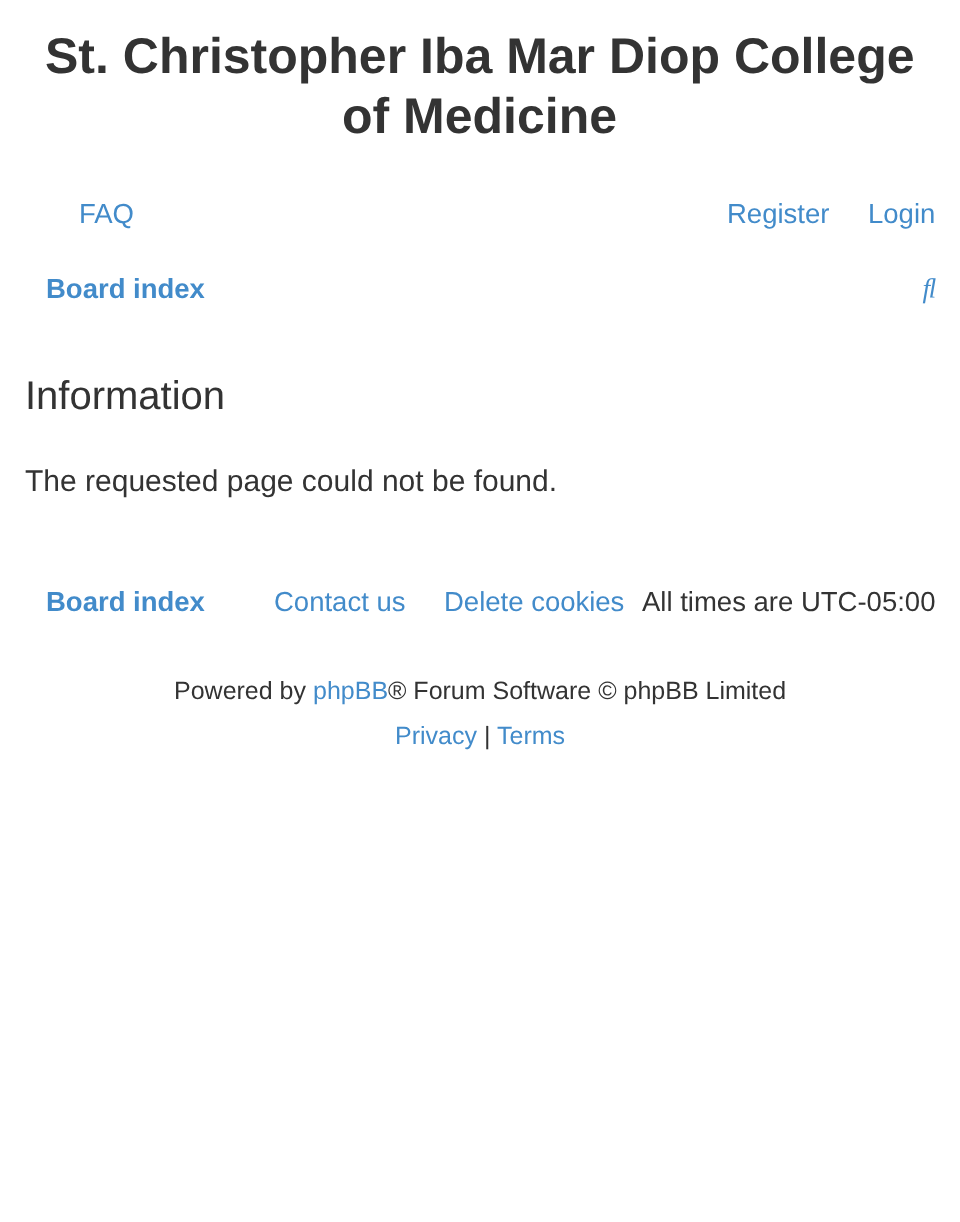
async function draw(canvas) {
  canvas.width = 960
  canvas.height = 1222
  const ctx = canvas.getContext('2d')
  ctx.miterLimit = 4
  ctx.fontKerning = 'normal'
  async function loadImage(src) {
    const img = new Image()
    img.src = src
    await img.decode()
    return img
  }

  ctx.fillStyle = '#fff'
  ctx.fillRect(0, 0, 960, 1222)
  ctx.font = 'bold 50px Liberation Sans'
  ctx.fillStyle = '#333'
  ctx.fillText('St. Christopher Iba Mar Diop College', 45, 73)
  ctx.fillText('of Medicine', 342, 133)
  ctx.font = '27.5px Liberation Sans'
  ctx.fillStyle = '#428bca'
  ctx.fillText('FAQ', 79, 223)
  ctx.fillText('Register', 727, 223)
  ctx.fillText('Login', 868, 223)
  ctx.font = 'bold 27.5px Liberation Sans'
  ctx.fillText('Board index', 46, 298)
  ctx.drawImage(await loadImage('image0.png'), 922, 278, 14, 26)
  ctx.font = '40px Liberation Sans'
  ctx.fillStyle = '#333'
  ctx.fillText('Information', 25, 409)
  ctx.font = '30px Liberation Sans'
  ctx.fillText('The requested page could not be found.', 25, 491)
  ctx.font = 'bold 27.5px Liberation Sans'
  ctx.fillStyle = '#428bca'
  ctx.fillText('Board index', 46, 611)
  ctx.font = '27.5px Liberation Sans'
  ctx.fillText('Contact us', 274, 611)
  ctx.fillText('Delete cookies', 444, 611)
  ctx.fillStyle = '#333'
  ctx.fillText('All times are UTC-05:00', 642, 611)
  ctx.font = '25px Liberation Sans'
  ctx.fillText('Powered by', 174, 699)
  ctx.fillStyle = '#428bca'
  ctx.fillText('phpBB', 313, 699)
  ctx.fillStyle = '#333'
  ctx.fillText('® Forum Software © phpBB Limited', 388, 699)
  ctx.fillStyle = '#428bca'
  ctx.fillText('Privacy', 395, 744)
  ctx.fillStyle = '#333'
  ctx.fillText('|', 484, 744)
  ctx.fillStyle = '#428bca'
  ctx.fillText('Terms', 497, 744)
}

draw(document.querySelector('canvas'))
